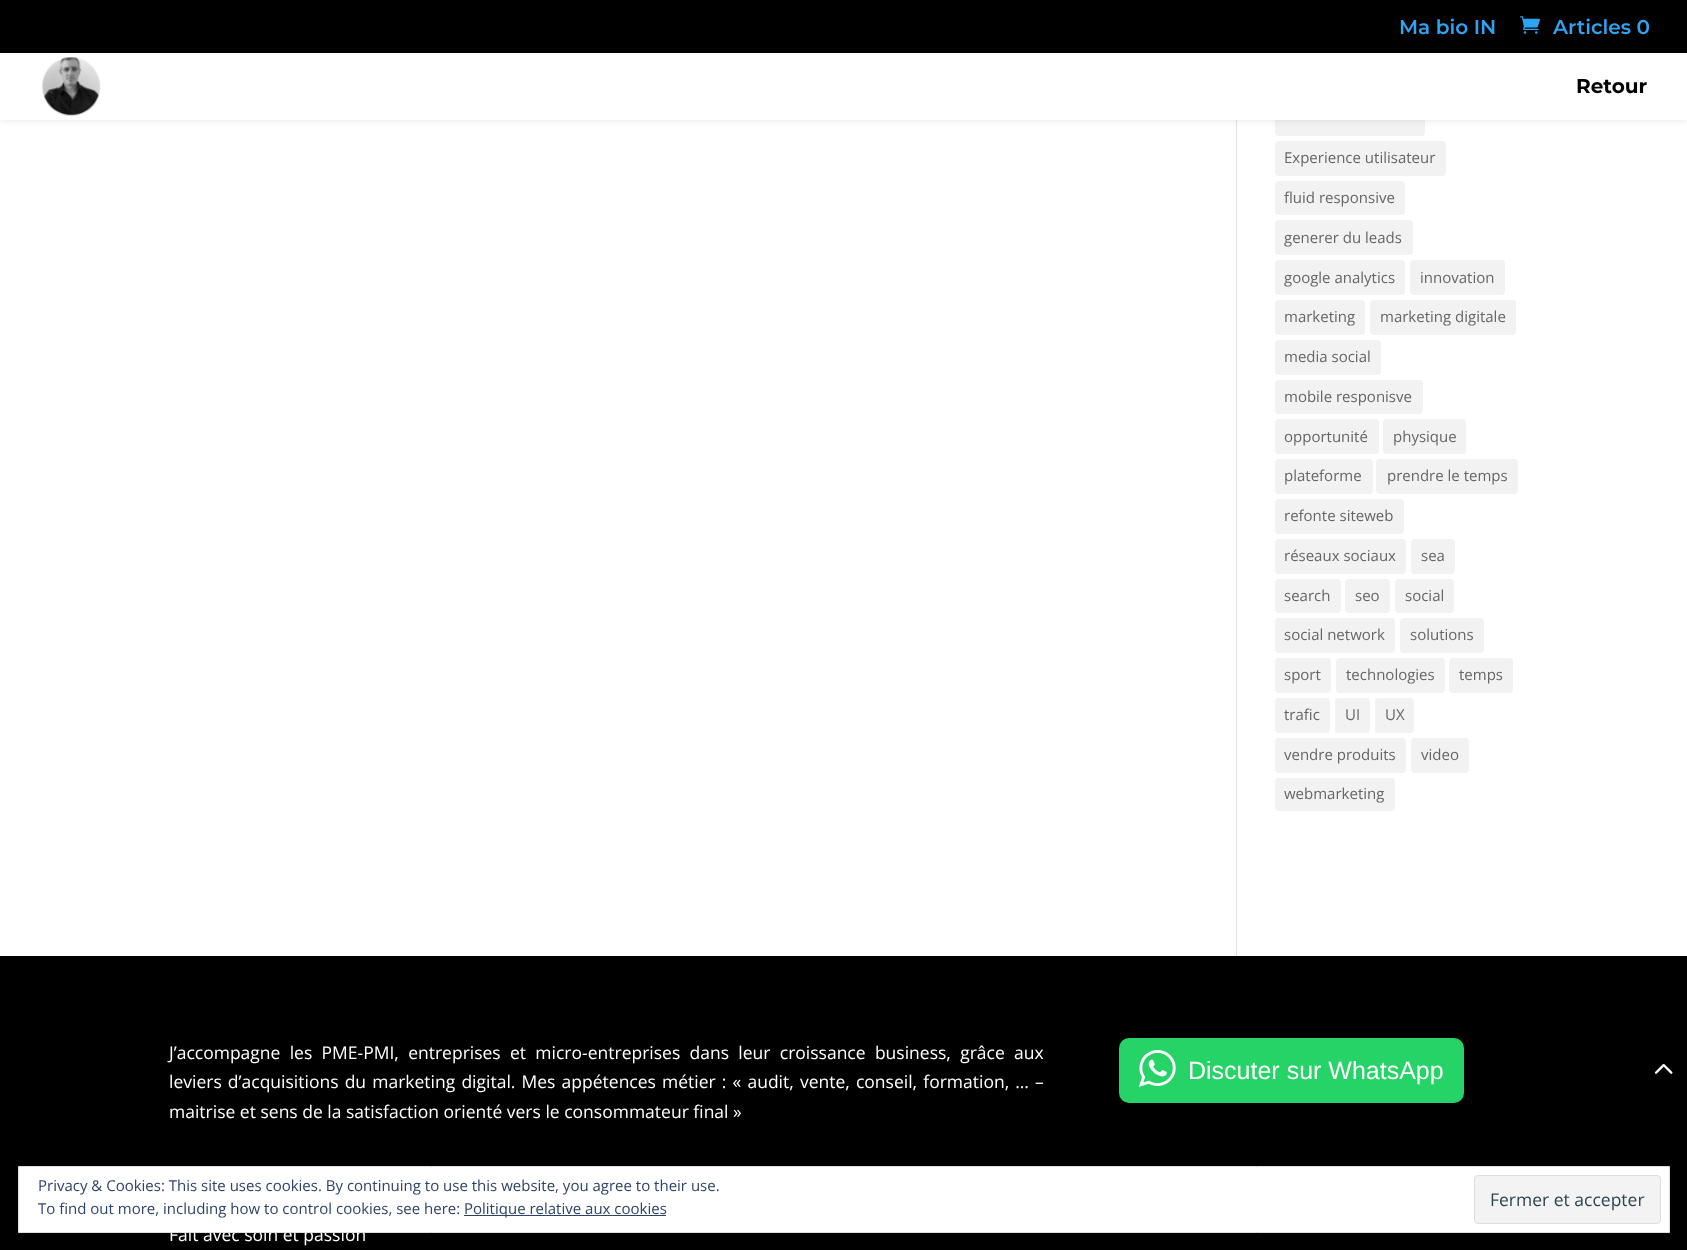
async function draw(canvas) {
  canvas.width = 1687
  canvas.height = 1250
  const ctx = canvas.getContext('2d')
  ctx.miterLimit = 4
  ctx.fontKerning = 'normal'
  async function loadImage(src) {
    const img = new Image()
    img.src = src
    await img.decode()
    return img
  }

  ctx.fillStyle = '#000'
  ctx.fillRect(0, 0, 1687, 1250)
  ctx.font = '600 20px Montserrat'
  ctx.fillStyle = '#2ea3f2'
  ctx.fillText('Ma bio IN', 1399, 34)
  ctx.drawImage(await loadImage('image0.png'), 1520, 16, 20, 18)
  ctx.fillText('Articles 0', 1553, 34)
  ctx.fillStyle = '#fff'
  ctx.fillRect(0, 120, 1687, 836)
  ctx.fillStyle = '#e2e2e2'
  ctx.fillRect(1236, 120, 1, 836)
  ctx.fillStyle = '#f2f2f2'
  ctx.beginPath()
  ctx.roundRect(1275, 101, 150, 35, 4)
  ctx.fill()
  ctx.fillStyle = '#0000001a'
  ctx.filter = 'blur(4.5px)'
  ctx.beginPath()
  ctx.rect(0, 53, 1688, 67)
  ctx.fill()
  ctx.filter = 'none'
  ctx.fillStyle = '#fff'
  ctx.fillRect(0, 53, 1687, 67)
  ctx.drawImage(await loadImage('image1.png'), 42, 57, 59, 59)
  ctx.font = 'bold 20px Montserrat'
  ctx.fillStyle = '#000'
  ctx.fillText('Retour', 1576, 93)
  ctx.fillStyle = '#f2f2f2'
  ctx.beginPath()
  ctx.roundRect(1275, 141, 171, 35, 4)
  ctx.fill()
  ctx.font = '15px Open Sans'
  ctx.fillStyle = '#666'
  ctx.fillText('Experience utilisateur', 1284, 163)
  ctx.fillStyle = '#f2f2f2'
  ctx.beginPath()
  ctx.roundRect(1275, 181, 130, 34, 4)
  ctx.fill()
  ctx.fillStyle = '#666'
  ctx.fillText('fluid responsive', 1284, 203)
  ctx.fillStyle = '#f2f2f2'
  ctx.beginPath()
  ctx.roundRect(1275, 220, 138, 35, 4)
  ctx.fill()
  ctx.fillStyle = '#666'
  ctx.fillText('generer du leads', 1284, 243)
  ctx.fillStyle = '#f2f2f2'
  ctx.beginPath()
  ctx.roundRect(1275, 260, 130, 35, 4)
  ctx.fill()
  ctx.fillStyle = '#666'
  ctx.fillText('google analytics', 1284, 283)
  ctx.fillStyle = '#f2f2f2'
  ctx.beginPath()
  ctx.roundRect(1410, 260, 95, 35, 4)
  ctx.fill()
  ctx.fillStyle = '#666'
  ctx.fillText('innovation', 1420, 283)
  ctx.fillStyle = '#f2f2f2'
  ctx.beginPath()
  ctx.roundRect(1275, 300, 90, 35, 4)
  ctx.fill()
  ctx.fillStyle = '#666'
  ctx.fillText('marketing', 1284, 322)
  ctx.fillStyle = '#f2f2f2'
  ctx.beginPath()
  ctx.roundRect(1370, 300, 146, 35, 4)
  ctx.fill()
  ctx.fillStyle = '#666'
  ctx.fillText('marketing digitale', 1380, 322)
  ctx.fillStyle = '#f2f2f2'
  ctx.beginPath()
  ctx.roundRect(1275, 340, 106, 35, 4)
  ctx.fill()
  ctx.fillStyle = '#666'
  ctx.fillText('media social', 1284, 362)
  ctx.fillStyle = '#f2f2f2'
  ctx.beginPath()
  ctx.roundRect(1275, 380, 148, 34, 4)
  ctx.fill()
  ctx.fillStyle = '#666'
  ctx.fillText('mobile responisve', 1284, 402)
  ctx.fillStyle = '#f2f2f2'
  ctx.beginPath()
  ctx.roundRect(1275, 419, 104, 35, 4)
  ctx.fill()
  ctx.fillStyle = '#666'
  ctx.fillText('opportunité', 1284, 442)
  ctx.fillStyle = '#f2f2f2'
  ctx.beginPath()
  ctx.roundRect(1383, 419, 83, 35, 4)
  ctx.fill()
  ctx.fillStyle = '#666'
  ctx.fillText('physique', 1393, 442)
  ctx.fillStyle = '#f2f2f2'
  ctx.beginPath()
  ctx.roundRect(1275, 459, 98, 35, 4)
  ctx.fill()
  ctx.fillStyle = '#666'
  ctx.fillText('plateforme', 1284, 481)
  ctx.fillStyle = '#f2f2f2'
  ctx.beginPath()
  ctx.roundRect(1376, 459, 142, 35, 4)
  ctx.fill()
  ctx.fillStyle = '#666'
  ctx.fillText('prendre le temps', 1387, 481)
  ctx.fillStyle = '#f2f2f2'
  ctx.beginPath()
  ctx.roundRect(1275, 499, 129, 35, 4)
  ctx.fill()
  ctx.fillStyle = '#666'
  ctx.fillText('refonte siteweb', 1284, 521)
  ctx.fillStyle = '#f2f2f2'
  ctx.beginPath()
  ctx.roundRect(1275, 539, 131, 35, 4)
  ctx.fill()
  ctx.fillStyle = '#666'
  ctx.fillText('réseaux sociaux', 1284, 561)
  ctx.fillStyle = '#f2f2f2'
  ctx.beginPath()
  ctx.roundRect(1411, 539, 44, 35, 4)
  ctx.fill()
  ctx.fillStyle = '#666'
  ctx.fillText('sea', 1421, 561)
  ctx.fillStyle = '#f2f2f2'
  ctx.beginPath()
  ctx.roundRect(1275, 579, 66, 34, 4)
  ctx.fill()
  ctx.fillStyle = '#666'
  ctx.fillText('search', 1284, 601)
  ctx.fillStyle = '#f2f2f2'
  ctx.beginPath()
  ctx.roundRect(1345, 579, 45, 34, 4)
  ctx.fill()
  ctx.fillStyle = '#666'
  ctx.fillText('seo', 1355, 601)
  ctx.fillStyle = '#f2f2f2'
  ctx.beginPath()
  ctx.roundRect(1395, 579, 59, 34, 4)
  ctx.fill()
  ctx.fillStyle = '#666'
  ctx.fillText('social', 1405, 601)
  ctx.fillStyle = '#f2f2f2'
  ctx.beginPath()
  ctx.roundRect(1275, 618, 120, 35, 4)
  ctx.fill()
  ctx.fillStyle = '#666'
  ctx.fillText('social network', 1284, 640)
  ctx.fillStyle = '#f2f2f2'
  ctx.beginPath()
  ctx.roundRect(1400, 618, 84, 35, 4)
  ctx.fill()
  ctx.fillStyle = '#666'
  ctx.fillText('solutions', 1410, 640)
  ctx.fillStyle = '#f2f2f2'
  ctx.beginPath()
  ctx.roundRect(1275, 658, 56, 35, 4)
  ctx.fill()
  ctx.fillStyle = '#666'
  ctx.fillText('sport', 1284, 680)
  ctx.fillStyle = '#f2f2f2'
  ctx.beginPath()
  ctx.roundRect(1336, 658, 109, 35, 4)
  ctx.fill()
  ctx.fillStyle = '#666'
  ctx.fillText('technologies', 1346, 680)
  ctx.fillStyle = '#f2f2f2'
  ctx.beginPath()
  ctx.roundRect(1449, 658, 64, 35, 4)
  ctx.fill()
  ctx.fillStyle = '#666'
  ctx.fillText('temps', 1459, 680)
  ctx.fillStyle = '#f2f2f2'
  ctx.beginPath()
  ctx.roundRect(1275, 698, 55, 35, 4)
  ctx.fill()
  ctx.fillStyle = '#666'
  ctx.fillText('trafic', 1284, 720)
  ctx.fillStyle = '#f2f2f2'
  ctx.beginPath()
  ctx.roundRect(1335, 698, 35, 35, 4)
  ctx.fill()
  ctx.fillStyle = '#666'
  ctx.fillText('UI', 1345, 720)
  ctx.fillStyle = '#f2f2f2'
  ctx.beginPath()
  ctx.roundRect(1375, 698, 39, 35, 4)
  ctx.fill()
  ctx.fillStyle = '#666'
  ctx.fillText('UX', 1385, 720)
  ctx.fillStyle = '#f2f2f2'
  ctx.beginPath()
  ctx.roundRect(1275, 738, 131, 35, 4)
  ctx.fill()
  ctx.fillStyle = '#666'
  ctx.fillText('vendre produits', 1284, 760)
  ctx.fillStyle = '#f2f2f2'
  ctx.beginPath()
  ctx.roundRect(1411, 738, 58, 35, 4)
  ctx.fill()
  ctx.fillStyle = '#666'
  ctx.fillText('video', 1421, 760)
  ctx.fillStyle = '#f2f2f2'
  ctx.beginPath()
  ctx.roundRect(1275, 778, 120, 33, 4)
  ctx.fill()
  ctx.fillStyle = '#666'
  ctx.fillText('webmarketing', 1284, 799)
  ctx.wordSpacing = '4.75px'
  ctx.font = '17.5px Open Sans'
  ctx.fillStyle = '#fff'
  ctx.fillText('J’accompagne les PME-PMI, entreprises et micro-entreprises dans leur croissance business, grâce aux', 169, 1059)
  ctx.wordSpacing = '1.6px'
  ctx.fillText('leviers d’acquisitions du marketing digital. Mes appétences métier : « audit, vente, conseil, formation, … –', 169, 1088)
  ctx.wordSpacing = '0px'
  ctx.fillText('maitrise et sens de la satisfaction orienté vers le consommateur final »', 169, 1118)
  ctx.fillStyle = '#25d366'
  ctx.beginPath()
  ctx.roundRect(1119, 1038, 345, 65, 10)
  ctx.fill()
  ctx.drawImage(await loadImage('image2.png'), 1139, 1050, 37, 37)
  ctx.font = '25px Liberation Sans'
  ctx.fillStyle = '#fff'
  ctx.fillText('Discuter sur WhatsApp', 1188, 1079)
  ctx.font = '17.5px Open Sans'
  ctx.fillText('Fait avec soin et passion', 169, 1241)
  ctx.drawImage(await loadImage('image3.png'), 1654, 1063, 19, 11)
  ctx.beginPath()
  ctx.rect(18.5, 1166.5, 1651, 66)
  ctx.fill()
  ctx.strokeStyle = '#dedede'
  ctx.stroke()
  ctx.font = '15px Open Sans'
  ctx.fillStyle = '#2e4467'
  ctx.fillText('Privacy & Cookies: This site uses cookies. By continuing to use this website, you agree to their use.', 38, 1191)
  ctx.fillText('To find out more, including how to control cookies, see here:', 38, 1214)
  ctx.fillRect(464, 1215, 202, 1)
  ctx.fillText('Politique relative aux cookies', 464, 1214)
  ctx.fillStyle = '#f3f3f3'
  ctx.beginPath()
  ctx.roundRect(1474.5, 1175.5, 186, 48, 3.5)
  ctx.fill()
  ctx.stroke()
  ctx.font = '17.5px Open Sans'
  ctx.fillStyle = '#2e4453'
  ctx.fillText('Fermer et accepter', 1490, 1206)
}

draw(document.querySelector('canvas'))
